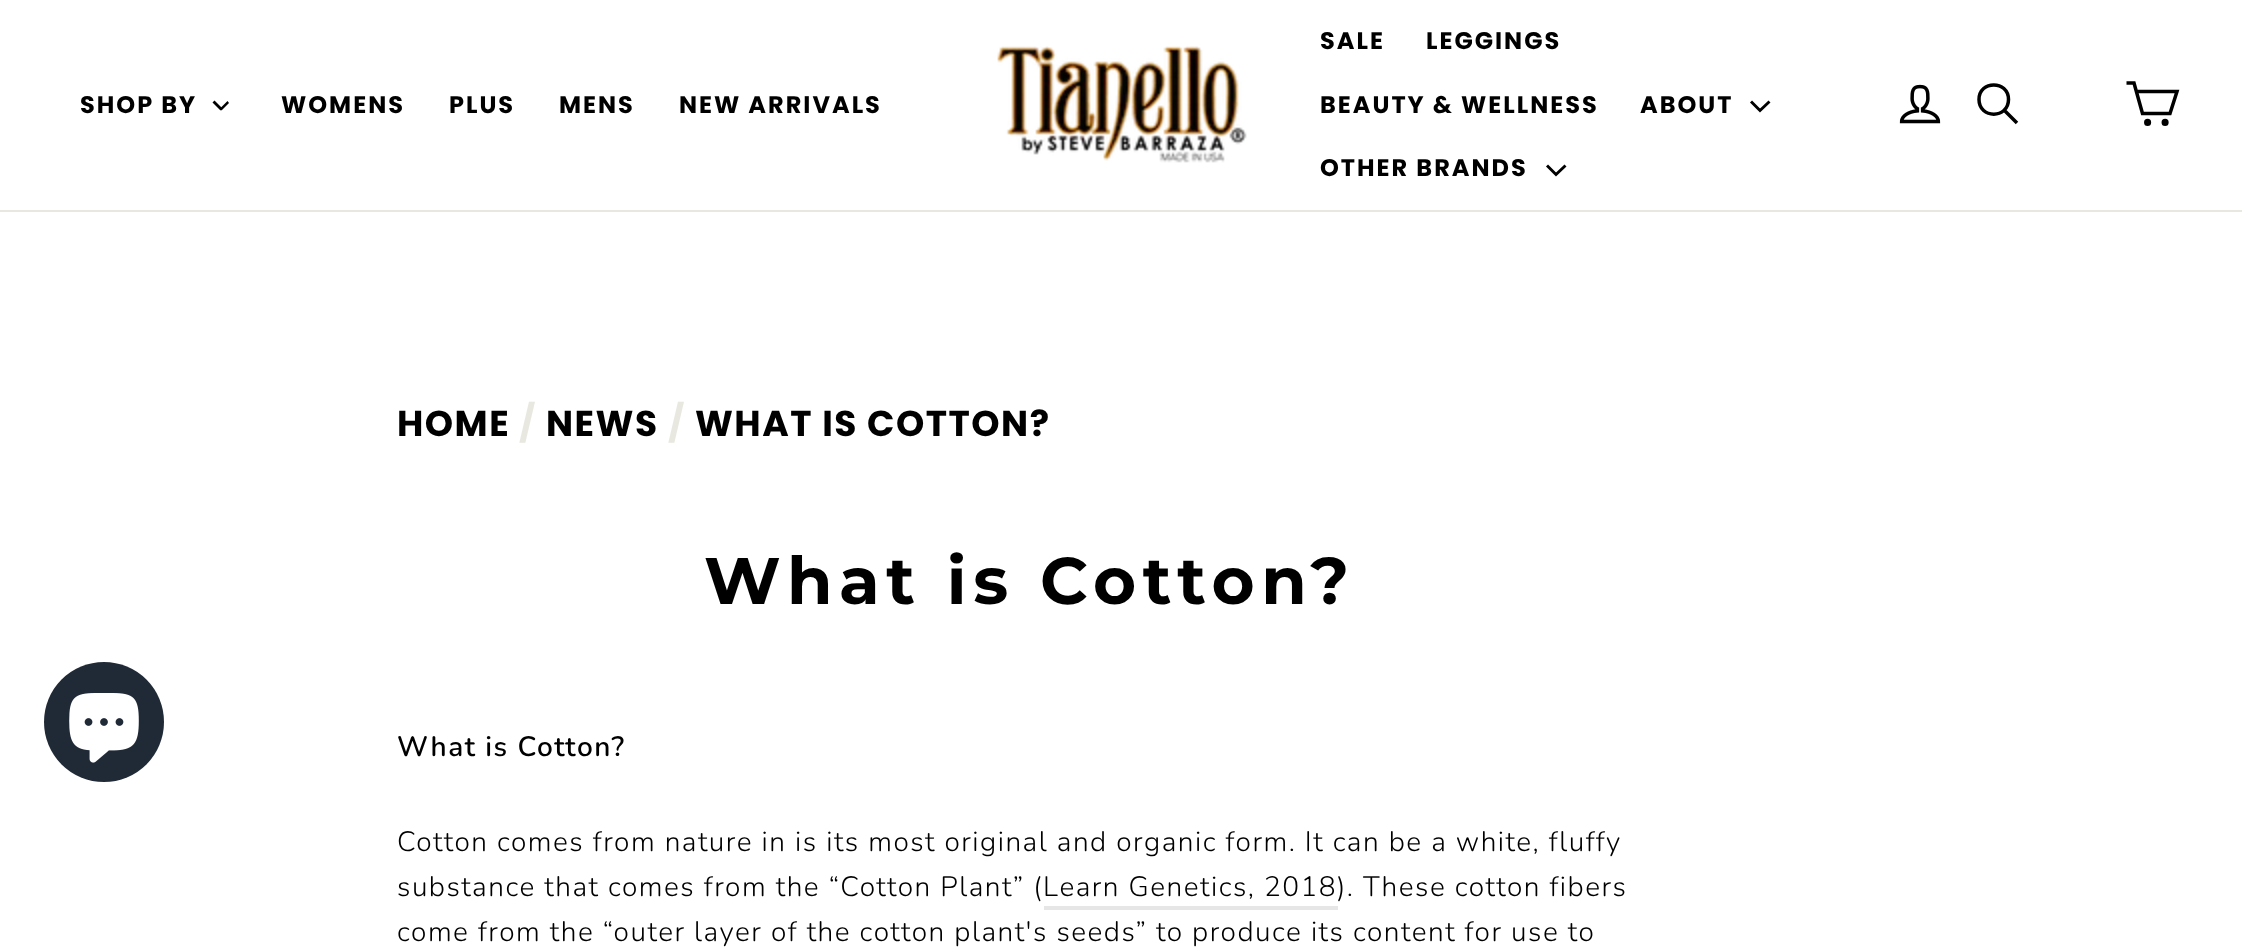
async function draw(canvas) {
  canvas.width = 2242
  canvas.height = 952
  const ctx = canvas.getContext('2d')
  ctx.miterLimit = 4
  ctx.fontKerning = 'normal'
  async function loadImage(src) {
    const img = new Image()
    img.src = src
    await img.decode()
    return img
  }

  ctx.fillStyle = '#fff'
  ctx.fillRect(0, 0, 2242, 952)
  ctx.fillStyle = '#e8e8e1'
  ctx.fillRect(0, 210, 2242, 2)
  ctx.letterSpacing = '2px'
  ctx.font = 'bold 24px Poppins'
  ctx.fillStyle = '#000'
  ctx.fillText('SHOP BY', 80, 113)
  ctx.beginPath()
  ctx.moveTo(227.5, 101)
  ctx.lineTo(229, 103)
  ctx.lineTo(221.5, 110.5)
  ctx.lineTo(220, 108.5)
  ctx.closePath()
  ctx.fill()
  ctx.beginPath()
  ctx.moveTo(214.5, 100.5)
  ctx.lineTo(222.5, 108.5)
  ctx.lineTo(220.5, 110.5)
  ctx.lineTo(212.5, 102.5)
  ctx.closePath()
  ctx.fill()
  ctx.fillText('WOMENS', 281, 113)
  ctx.fillText('PLUS', 449, 113)
  ctx.fillText('MENS', 559, 113)
  ctx.fillText('NEW ARRIVALS', 679, 113)
  ctx.drawImage(await loadImage('image0.png'), 997, 46, 250, 117)
  ctx.fillText('SALE', 1320, 49)
  ctx.fillText('LEGGINGS', 1426, 49)
  ctx.fillText('BEAUTY & WELLNESS', 1320, 113)
  ctx.fillText('ABOUT', 1640, 113)
  ctx.beginPath()
  ctx.moveTo(1751, 101.5)
  ctx.lineTo(1760, 110.5)
  ctx.lineTo(1769.5, 101.5)
  ctx.strokeStyle = '#000'
  ctx.lineWidth = 2.9
  ctx.stroke()
  ctx.fillText('OTHER BRANDS', 1320, 176)
  ctx.beginPath()
  ctx.moveTo(1547, 165.5)
  ctx.lineTo(1556, 174.5)
  ctx.lineTo(1565.5, 165.5)
  ctx.stroke()
  ctx.drawImage(await loadImage('image1.png'), 1899, 84, 42, 40)
  ctx.beginPath()
  ctx.moveTo(2008.5, 99.5)
  ctx.bezierCurveTo(2008.5, 119, 1979, 119, 1979, 99.5)
  ctx.bezierCurveTo(1979, 80, 2008.5, 80, 2008.5, 99.5)
  ctx.closePath()
  ctx.moveTo(2017, 123)
  ctx.lineTo(2004.5, 110.5)
  ctx.lineWidth = 3.5
  ctx.stroke()
  ctx.beginPath()
  ctx.moveTo(2136, 91.5)
  ctx.lineTo(2177, 91.5)
  ctx.lineTo(2170, 113.5)
  ctx.lineTo(2142.5, 113.5)
  ctx.lineTo(2134, 83)
  ctx.lineTo(2126.5, 83)
  ctx.stroke()
  ctx.beginPath()
  ctx.arc(2147.6, 122.4, 1.8, 0, 2 * Math.PI)
  ctx.stroke()
  ctx.beginPath()
  ctx.arc(2165.1, 122.4, 1.8, 0, 2 * Math.PI)
  ctx.stroke()
  ctx.letterSpacing = '1.5px'
  ctx.font = 'bold 36px Poppins'
  ctx.fillText('HOME', 397, 436)
  ctx.fillStyle = '#e8e8e1'
  ctx.fillText('/', 519, 436)
  ctx.fillStyle = '#000'
  ctx.fillText('NEWS', 546, 436)
  ctx.fillStyle = '#e8e8e1'
  ctx.fillText('/', 668, 436)
  ctx.fillStyle = '#000'
  ctx.fillText('WHAT IS COTTON?', 695, 436)
  ctx.letterSpacing = '6.6px'
  ctx.font = '100 65.9px Montserrat'
  ctx.fillText('What is Cotton?', 704, 604)
  ctx.letterSpacing = '1.5px'
  ctx.font = '600 28px Nunito'
  ctx.fillText('What is Cotton?', 397, 756)
  ctx.font = '300 28px Nunito'
  ctx.fillText('Cotton comes from nature in is its most original and organic form. It can be a white, fluffy', 397, 851)
  ctx.fillText('substance that comes from the “Cotton Plant” (Learn Genetics, 2018', 397, 896)
  ctx.fillText('). These cotton fibers', 1337, 896)
  ctx.fillStyle = '#e6e6e6'
  ctx.fillRect(1044, 906, 294, 4)
  ctx.fillStyle = '#000'
  ctx.fillText('come from the “outer layer of the cotton plant\'s seeds” to produce its content for use to', 397, 941)
  ctx.fillStyle = '#202a36'
  ctx.beginPath()
  ctx.arc(104, 722, 60, 0, 2 * Math.PI)
  ctx.fill()
  ctx.drawImage(await loadImage('image2.png'), 69, 693, 70, 70)
}

draw(document.querySelector('canvas'))
